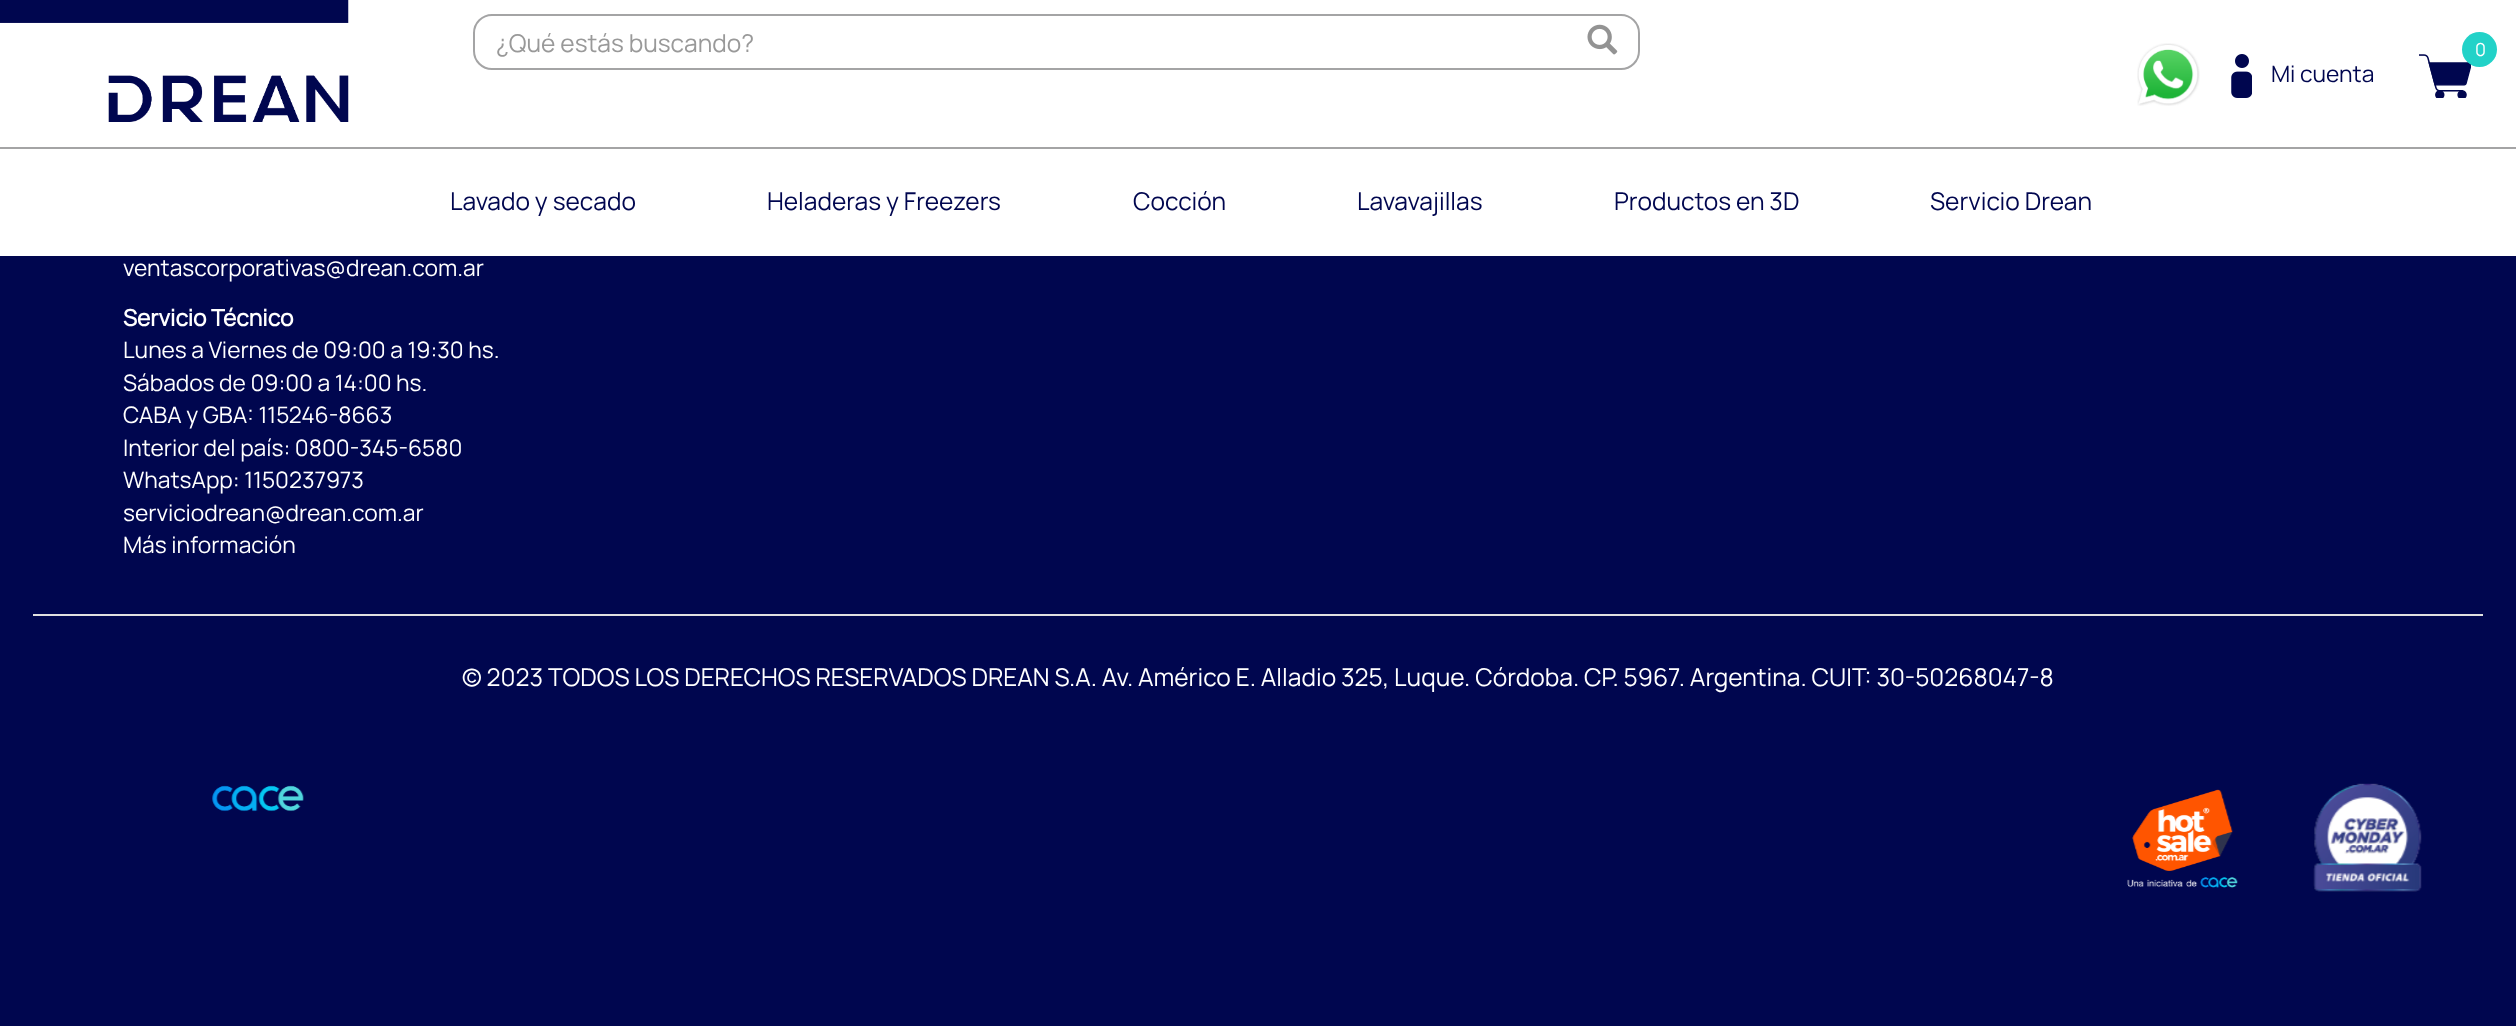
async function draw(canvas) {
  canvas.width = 2516
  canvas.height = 1026
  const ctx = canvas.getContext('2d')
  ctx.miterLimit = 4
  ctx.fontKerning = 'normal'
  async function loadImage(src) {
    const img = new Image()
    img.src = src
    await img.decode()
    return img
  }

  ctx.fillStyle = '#00064f'
  ctx.fillRect(0, 0, 2516, 1026)
  ctx.fillStyle = '#fff'
  ctx.fillRect(0, 0, 2516, 256)
  ctx.drawImage(await loadImage('image0.png'), 0, 0, 349, 122)
  ctx.beginPath()
  ctx.roundRect(474, 15, 1165, 54, 18)
  ctx.strokeStyle = '#a4a4a5'
  ctx.lineWidth = 2
  ctx.stroke()
  ctx.font = '24.5px Manrope'
  ctx.fillStyle = '#999'
  ctx.fillText('¿Qué estás buscando?', 496, 52)
  ctx.drawImage(await loadImage('image1.png'), 1587, 24, 31, 31)
  ctx.drawImage(await loadImage('image2.png'), 2137, 43, 63, 63)
  ctx.drawImage(await loadImage('image3.png'), 2419, 54, 52, 44)
  ctx.fillStyle = '#22d2c8'
  ctx.beginPath()
  ctx.arc(2479.5, 49.5, 17.5, 0, 2 * Math.PI)
  ctx.fill()
  ctx.font = '18px Manrope'
  ctx.fillStyle = '#fff'
  ctx.fillText('0', 2475, 56)
  ctx.drawImage(await loadImage('image4.png'), 2231, 54, 21, 44)
  ctx.font = '22.75px Manrope'
  ctx.fillStyle = '#00064f'
  ctx.fillText('Mi cuenta', 2271, 82)
  ctx.fillStyle = '#a4a4a5'
  ctx.fillRect(0, 147, 2516, 2)
  ctx.font = '24.5px Manrope'
  ctx.fillStyle = '#00064f'
  ctx.fillText('Lavado y secado', 450, 210)
  ctx.fillText('Heladeras y Freezers', 767, 210)
  ctx.fillText('Cocción', 1133, 210)
  ctx.fillText('Lavavajillas', 1357, 210)
  ctx.fillText('Productos en 3D', 1614, 210)
  ctx.fillText('Servicio Drean', 1930, 210)
  ctx.font = '22.75px Manrope'
  ctx.fillStyle = '#fff'
  ctx.fillText('ventascorporativas@drean.com.ar', 123, 276)
  ctx.font = 'bold 22.75px Manrope'
  ctx.fillText('Servicio Técnico', 123, 326)
  ctx.font = '22.75px Manrope'
  ctx.fillText('Lunes a Viernes de 09:00 a 19:30 hs.', 123, 358)
  ctx.fillText('Sábados de 09:00 a 14:00 hs.', 123, 391)
  ctx.fillText('CABA y GBA: 115246-8663', 123, 423)
  ctx.fillText('Interior del país: 0800-345-6580', 123, 456)
  ctx.fillText('WhatsApp: 1150237973', 123, 488)
  ctx.fillText('serviciodrean@drean.com.ar', 123, 521)
  ctx.fillText('Más información', 123, 553)
  ctx.fillStyle = '#e0e0e0'
  ctx.fillRect(33, 614, 2450, 2)
  ctx.font = '24.5px Manrope'
  ctx.fillStyle = '#fff'
  ctx.fillText('© 2023 TODOS LOS DERECHOS RESERVADOS DREAN S.A. Av. Américo E. Alladio 325, Luque. Córdoba. CP. 5967. Argentina. CUIT: 30-50268047-8', 462, 686)
  ctx.drawImage(await loadImage('image5.png'), 212, 785, 92, 27)
  ctx.drawImage(await loadImage('image6.png'), 2127, 789, 111, 99)
  ctx.drawImage(await loadImage('image7.png'), 2313, 783, 109, 109)
}

draw(document.querySelector('canvas'))
